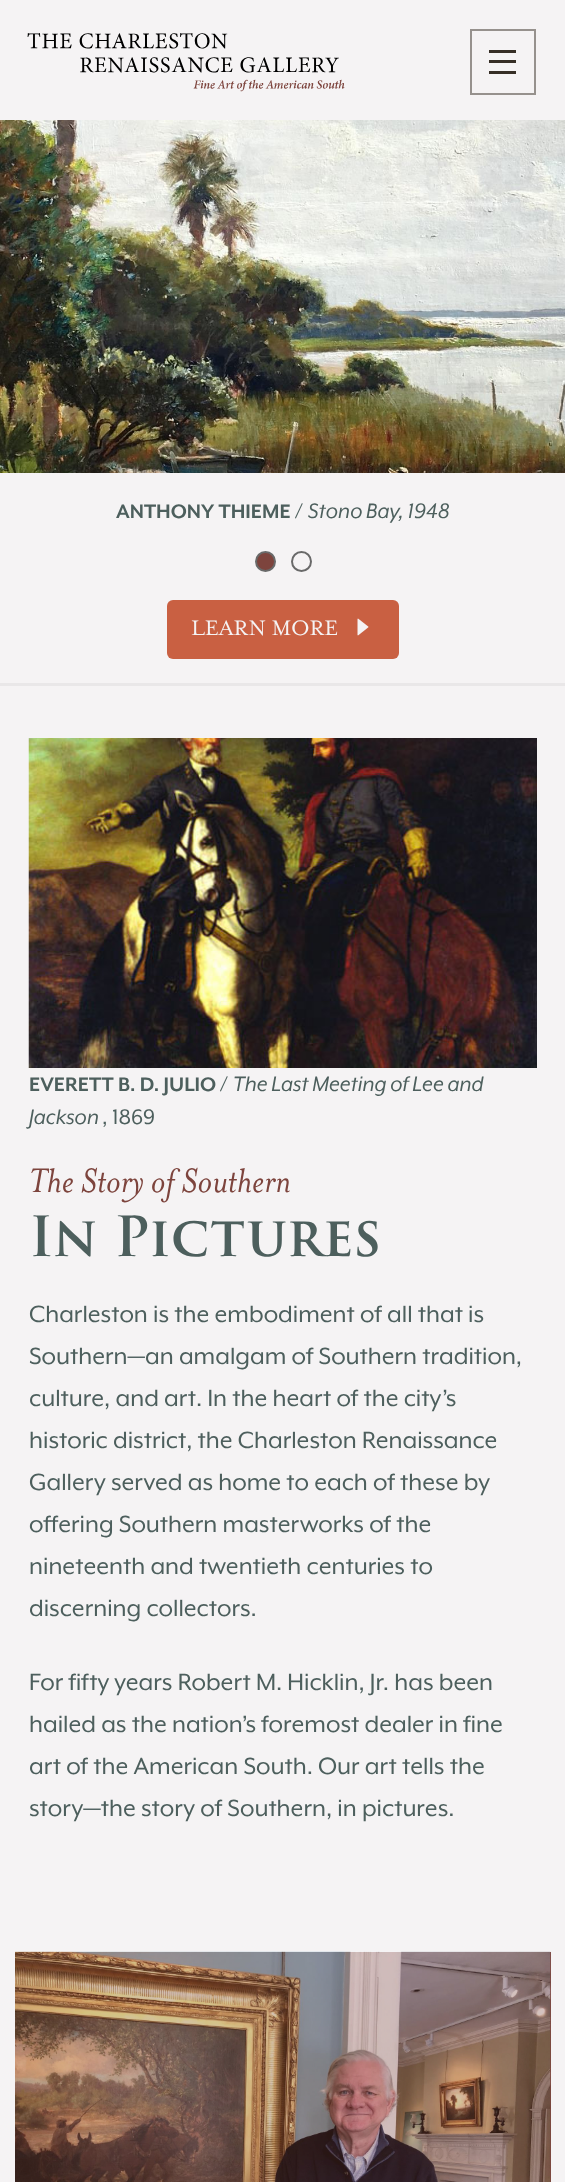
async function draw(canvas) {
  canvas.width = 565
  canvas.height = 2182
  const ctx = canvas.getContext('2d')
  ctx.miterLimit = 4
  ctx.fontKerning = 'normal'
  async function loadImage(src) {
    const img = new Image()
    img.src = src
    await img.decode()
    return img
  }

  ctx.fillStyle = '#f5f3f4'
  ctx.fillRect(0, 0, 565, 2182)
  ctx.drawImage(await loadImage('image0.png'), 27, 33, 318, 59)
  ctx.strokeStyle = '#96918d'
  ctx.lineWidth = 2
  ctx.strokeRect(471, 30, 64, 64)
  ctx.fillStyle = '#362e26'
  ctx.fillRect(489, 60, 27, 3)
  ctx.fillRect(489, 50, 27, 3)
  ctx.fillRect(489, 71, 27, 3)
  ctx.drawImage(await loadImage('image1.png'), 0, 120, 565, 353)
  ctx.fillStyle = '#e9e7e8'
  ctx.fillRect(0, 683, 565, 3)
  ctx.font = 'bold 22.5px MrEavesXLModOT'
  ctx.fillStyle = '#4d5f5d'
  ctx.fillText('ANTHONY THIEME', 116, 518)
  ctx.font = '24px MrEavesXLModOT'
  ctx.fillText('/', 295, 518)
  ctx.font = 'italic 24px MrEavesXLModOT'
  ctx.fillText('Stono Bay, 1948', 308, 518)
  ctx.fillStyle = '#c96042'
  ctx.beginPath()
  ctx.roundRect(167, 600, 232, 59, 6)
  ctx.fill()
  ctx.font = '24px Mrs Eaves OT'
  ctx.fillStyle = '#f5f3f4'
  ctx.fillText('LEARN MORE', 191, 635)
  ctx.drawImage(await loadImage('image2.png'), 357, 618, 12, 18)
  ctx.fillStyle = '#7d443d'
  ctx.beginPath()
  ctx.arc(265.5, 561.5, 9.5, 0, 2 * Math.PI)
  ctx.fill()
  ctx.strokeStyle = '#696969'
  ctx.stroke()
  ctx.beginPath()
  ctx.arc(301.5, 561.5, 9.5, 0, 2 * Math.PI)
  ctx.stroke()
  ctx.drawImage(await loadImage('image3.png'), 28, 738, 509, 330)
  ctx.font = 'bold 22.5px MrEavesXLModOT'
  ctx.fillStyle = '#4d5f5d'
  ctx.fillText('EVERETT B. D. JULIO', 29, 1091)
  ctx.font = '24px MrEavesXLModOT'
  ctx.fillText('/', 220, 1091)
  ctx.font = 'italic 24px MrEavesXLModOT'
  ctx.fillText('The Last Meeting of Lee and', 233, 1091)
  ctx.fillText('Jackson', 29, 1124)
  ctx.font = '24px MrEavesXLModOT'
  ctx.fillText(', 1869', 102, 1124)
  ctx.font = 'italic 39px Mrs Eaves OT'
  ctx.fillStyle = '#7d443d'
  ctx.fillText('The Story of Southern', 29, 1192)
  ctx.font = '600 54px "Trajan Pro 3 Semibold"'
  ctx.fillStyle = '#4d5f5d'
  ctx.fillText('In Pictures', 29, 1256)
  ctx.font = '27px MrEavesXLModOT'
  ctx.fillText('Charleston is the embodiment of all that is', 29, 1322)
  ctx.fillText('Southern—an amalgam of Southern tradition,', 29, 1364)
  ctx.fillText('culture, and art. In the heart of the city’s', 29, 1406)
  ctx.fillText('historic district, the Charleston Renaissance', 29, 1448)
  ctx.fillText('Gallery served as home to each of these by', 29, 1490)
  ctx.fillText('offering Southern masterworks of the', 29, 1532)
  ctx.fillText('nineteenth and twentieth centuries to', 29, 1574)
  ctx.fillText('discerning collectors.', 29, 1616)
  ctx.fillText('For fifty years Robert M. Hicklin, Jr. has been', 29, 1690)
  ctx.fillText('hailed as the nation’s foremost dealer in fine', 29, 1732)
  ctx.fillText('art of the American South. Our art tells the', 29, 1774)
  ctx.fillText('story—the story of Southern, in pictures.', 29, 1816)
  ctx.fillStyle = '#7d443d'
  ctx.fillRect(15, 1952, 536, 230)
  ctx.drawImage(await loadImage('image4.png'), 15, 1951, 536, 231)
}

draw(document.querySelector('canvas'))
